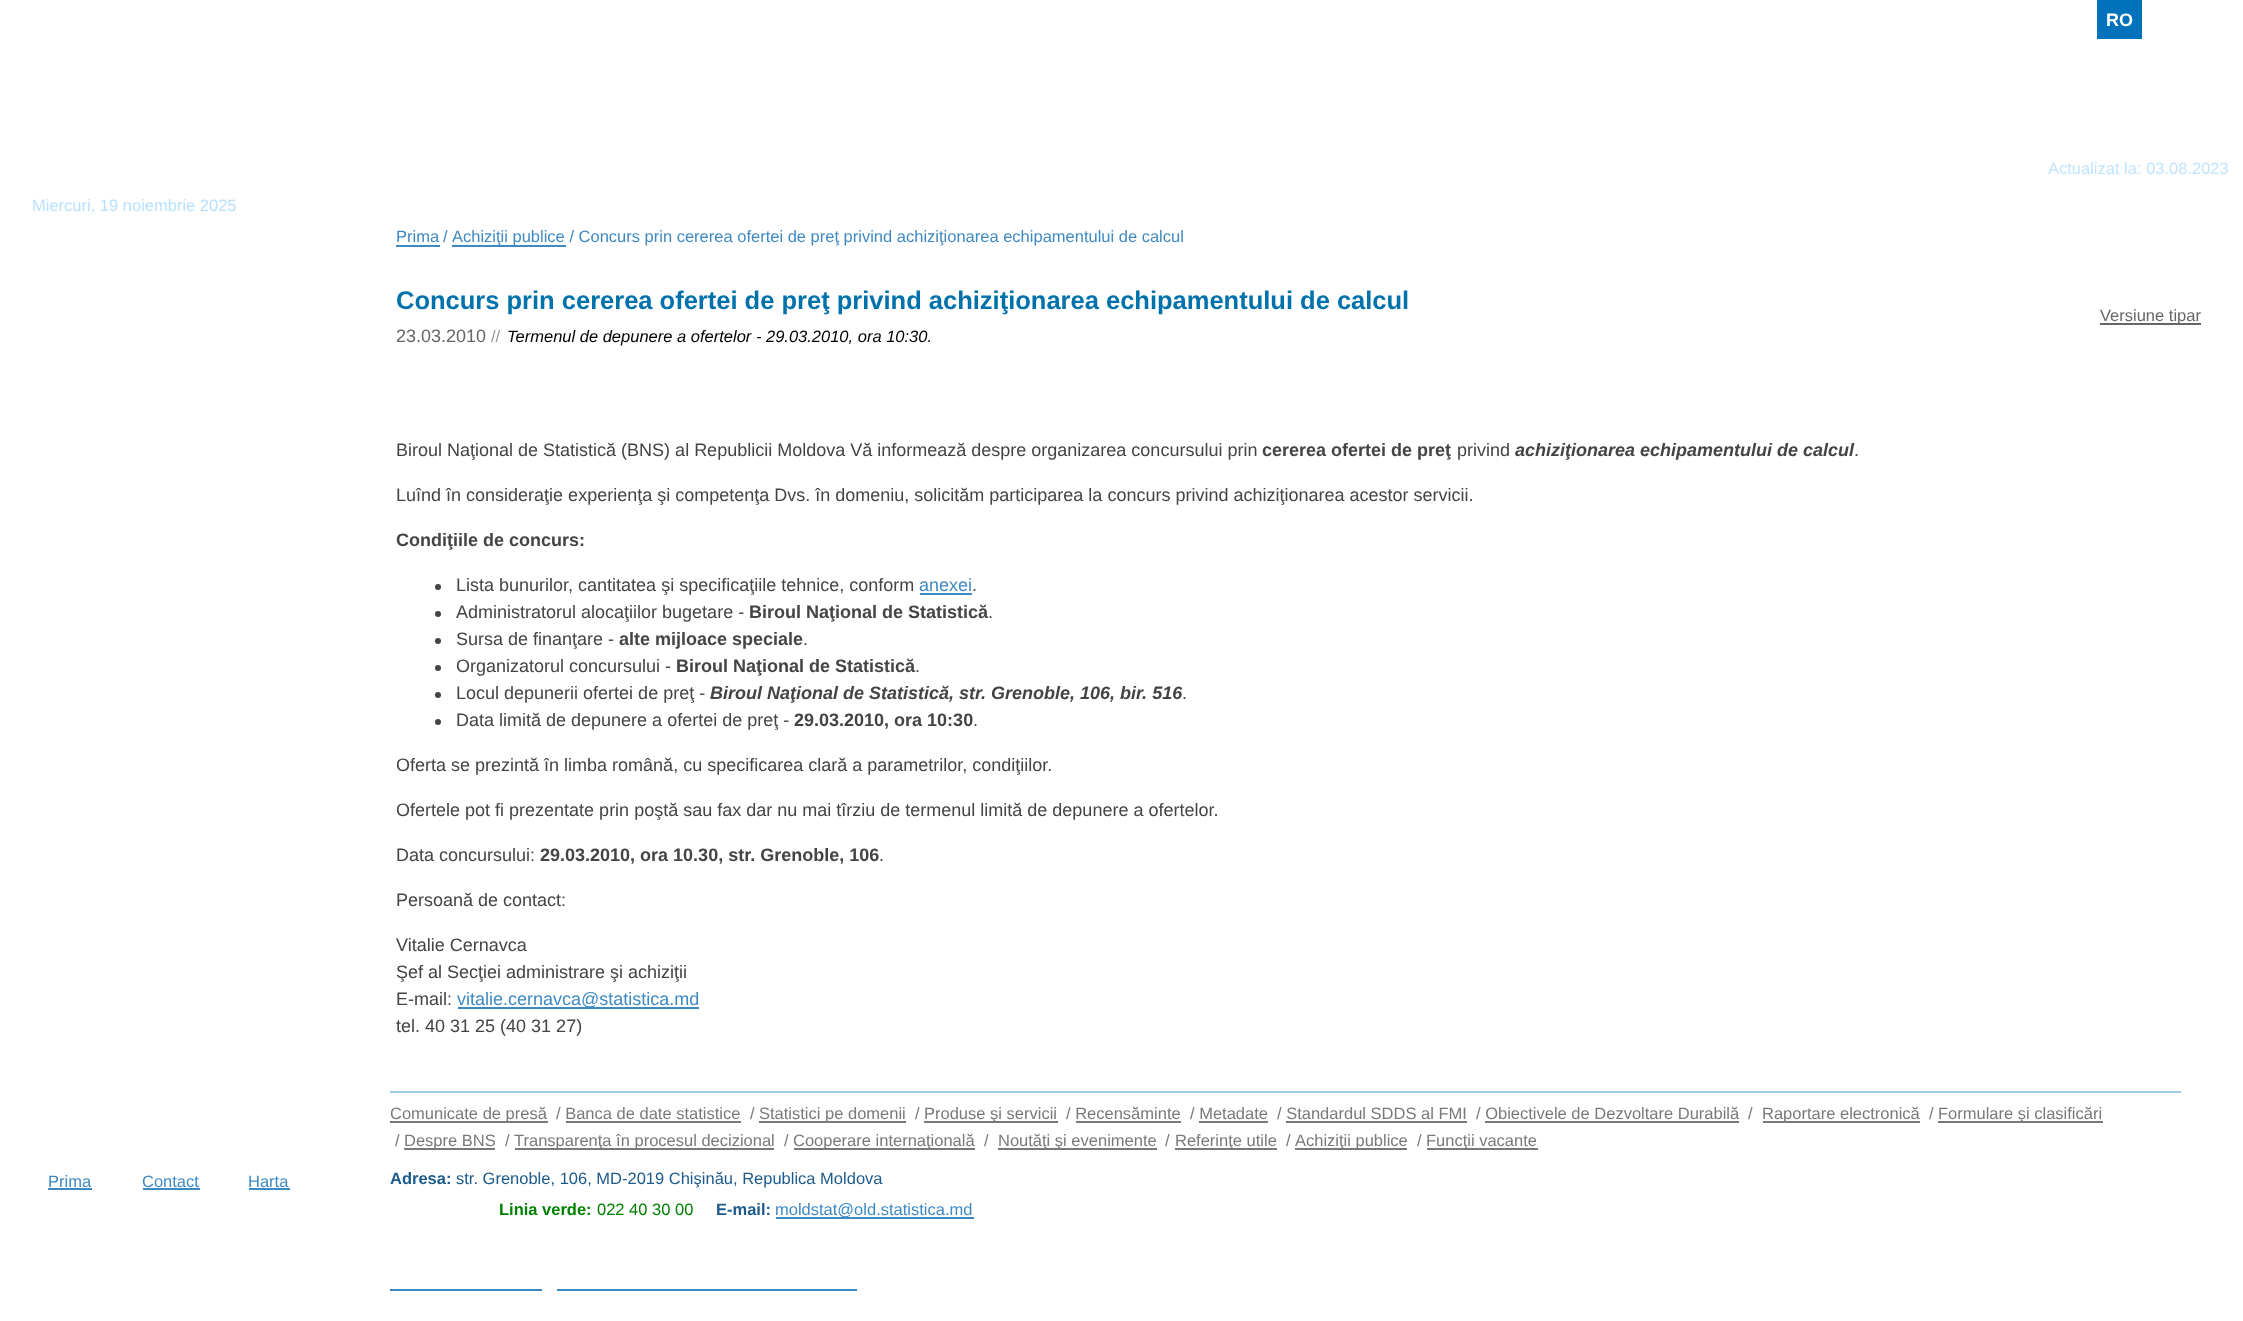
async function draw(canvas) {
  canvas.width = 2243
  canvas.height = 1321
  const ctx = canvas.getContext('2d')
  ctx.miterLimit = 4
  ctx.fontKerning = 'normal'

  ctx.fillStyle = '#fff'
  ctx.fillRect(0, 0, 2243, 1321)
  ctx.font = '16.5px Liberation Sans'
  ctx.fillStyle = '#b8e1ff'
  ctx.fillText('Miercuri, 19 noiembrie 2025', 32, 211)
  ctx.fillStyle = '#0072bc'
  ctx.fillRect(2097, 0, 45, 39)
  ctx.font = 'bold 18px Liberation Sans'
  ctx.fillStyle = '#fff'
  ctx.fillText('RO', 2106, 26)
  ctx.font = '16.5px Liberation Sans'
  ctx.fillStyle = '#c1e4ff'
  ctx.fillText('Actualizat la: 03.08.2023', 2048, 174)
  ctx.fillStyle = '#3f89c3'
  ctx.fillText('Prima', 396, 242)
  ctx.fillRect(396, 245, 44, 2)
  ctx.fillText('/', 443, 242)
  ctx.fillRect(452, 245, 114, 2)
  ctx.fillText('Achiziţii publice / Concurs prin cererea ofertei de preţ privind achiziţionarea echipamentului de calcul', 452, 242)
  ctx.font = 'bold 25.5px Liberation Sans'
  ctx.fillStyle = '#0072ab'
  ctx.fillText('Concurs prin cererea ofertei de preţ privind achiziţionarea echipamentului de calcul', 396, 309)
  ctx.font = '18px Liberation Sans'
  ctx.fillStyle = '#666'
  ctx.fillText('23.03.2010', 396, 342)
  ctx.font = '16.5px Liberation Sans'
  ctx.fillStyle = '#999'
  ctx.fillText('//', 491, 342)
  ctx.font = 'italic 16.5px Liberation Sans'
  ctx.fillStyle = '#000'
  ctx.fillText('Termenul de depunere a ofertelor - 29.03.2010, ora 10:30.', 507, 342)
  ctx.fillStyle = '#666'
  ctx.fillRect(2100, 323, 101, 2)
  ctx.font = '16.5px Liberation Sans'
  ctx.fillText('Versiune tipar', 2100, 321)
  ctx.font = '18px Liberation Sans'
  ctx.fillStyle = '#444'
  ctx.fillText('Biroul Naţional de Statistică (BNS) al Republicii Moldova Vă informează despre organizarea concursului prin', 396, 456)
  ctx.font = 'bold 18px Liberation Sans'
  ctx.fillText('cererea ofertei de preţ', 1262, 456)
  ctx.font = '18px Liberation Sans'
  ctx.fillText('privind', 1457, 456)
  ctx.font = 'italic bold 18px Liberation Sans'
  ctx.fillText('achiziţionarea echipamentului de calcul', 1515, 456)
  ctx.font = '18px Liberation Sans'
  ctx.fillText('.', 1854, 456)
  ctx.fillText('Luînd în consideraţie experienţa şi competenţa Dvs. în domeniu, solicităm participarea la concurs privind achiziţionarea acestor servicii.', 396, 501)
  ctx.font = 'bold 18px Liberation Sans'
  ctx.fillText('Condiţiile de concurs:', 396, 546)
  ctx.beginPath()
  ctx.arc(438, 587, 3, 0, 2 * Math.PI)
  ctx.fill()
  ctx.font = '18px Liberation Sans'
  ctx.fillText('Lista bunurilor, cantitatea şi specificaţiile tehnice, conform', 456, 591)
  ctx.fillStyle = '#3f89c3'
  ctx.fillText('anexei', 919, 591)
  ctx.fillRect(920, 593, 52, 2)
  ctx.fillStyle = '#444'
  ctx.fillText('.', 972, 591)
  ctx.beginPath()
  ctx.arc(438, 614, 3, 0, 2 * Math.PI)
  ctx.fill()
  ctx.fillText('Administratorul alocaţiilor bugetare -', 456, 618)
  ctx.font = 'bold 18px Liberation Sans'
  ctx.fillText('Biroul Naţional de Statistică', 749, 618)
  ctx.font = '18px Liberation Sans'
  ctx.fillText('.', 988, 618)
  ctx.beginPath()
  ctx.arc(438, 641, 3, 0, 2 * Math.PI)
  ctx.fill()
  ctx.fillText('Sursa de finanţare -', 456, 645)
  ctx.font = 'bold 18px Liberation Sans'
  ctx.fillText('alte mijloace speciale', 619, 645)
  ctx.font = '18px Liberation Sans'
  ctx.fillText('.', 803, 645)
  ctx.beginPath()
  ctx.arc(438, 668, 3, 0, 2 * Math.PI)
  ctx.fill()
  ctx.fillText('Organizatorul concursului -', 456, 672)
  ctx.font = 'bold 18px Liberation Sans'
  ctx.fillText('Biroul Naţional de Statistică', 676, 672)
  ctx.font = '18px Liberation Sans'
  ctx.fillText('.', 915, 672)
  ctx.beginPath()
  ctx.arc(438, 695, 3, 0, 2 * Math.PI)
  ctx.fill()
  ctx.fillText('Locul depunerii ofertei de preţ -', 456, 699)
  ctx.font = 'italic bold 18px Liberation Sans'
  ctx.fillText('Biroul Naţional de Statistică, str. Grenoble, 106, bir. 516', 710, 699)
  ctx.font = '18px Liberation Sans'
  ctx.fillText('.', 1182, 699)
  ctx.beginPath()
  ctx.arc(438, 722, 3, 0, 2 * Math.PI)
  ctx.fill()
  ctx.fillText('Data limită de depunere a ofertei de preţ -', 456, 726)
  ctx.font = 'bold 18px Liberation Sans'
  ctx.fillText('29.03.2010, ora 10:30', 794, 726)
  ctx.font = '18px Liberation Sans'
  ctx.fillText('.', 973, 726)
  ctx.fillText('Oferta se prezintă în limba română, cu specificarea clară a parametrilor, condiţiilor.', 396, 771)
  ctx.fillText('Ofertele pot fi prezentate prin poştă sau fax dar nu mai tîrziu de termenul limită de depunere a ofertelor.', 396, 816)
  ctx.fillText('Data concursului:', 396, 861)
  ctx.font = 'bold 18px Liberation Sans'
  ctx.fillText('29.03.2010, ora 10.30, str. Grenoble, 106', 540, 861)
  ctx.font = '18px Liberation Sans'
  ctx.fillText('.', 879, 861)
  ctx.fillText('Persoană de contact:', 396, 906)
  ctx.fillText('Vitalie Cernavca', 396, 951)
  ctx.fillText('Şef al Secţiei administrare şi achiziţii', 396, 978)
  ctx.fillText('E-mail:', 396, 1005)
  ctx.fillStyle = '#3f89c3'
  ctx.fillRect(458, 1007, 241, 2)
  ctx.fillText('vitalie.cernavca@statistica.md', 457, 1005)
  ctx.fillStyle = '#444'
  ctx.fillText('tel. 40 31 25 (40 31 27)', 396, 1032)
  ctx.font = '16.5px Liberation Sans'
  ctx.fillStyle = '#3f89c3'
  ctx.fillText('Prima', 48, 1187)
  ctx.fillRect(48, 1188, 44, 2)
  ctx.fillText('Contact', 142, 1187)
  ctx.fillRect(143, 1188, 57, 2)
  ctx.fillText('Harta', 248, 1187)
  ctx.fillRect(249, 1188, 41, 2)
  ctx.fillStyle = '#a3cae6'
  ctx.fillRect(390, 1091, 1791, 2)
  ctx.fillStyle = '#797979'
  ctx.fillRect(390, 1121, 158, 2)
  ctx.fillText('Comunicate de presă', 390, 1119)
  ctx.fillText('/ Banca de date statistice', 556, 1119)
  ctx.fillText('/', 750, 1119)
  ctx.fillRect(759, 1121, 147, 2)
  ctx.fillText('Statistici pe domenii', 759, 1119)
  ctx.fillText('/', 915, 1119)
  ctx.fillRect(924, 1121, 134, 2)
  ctx.fillText('Produse şi servicii', 924, 1119)
  ctx.fillText('/ Recensăminte', 1066, 1119)
  ctx.fillText('/ Metadate', 1190, 1119)
  ctx.fillText('/ Standardul SDDS al FMI', 1277, 1119)
  ctx.fillText('/ Obiectivele de Dezvoltare Durabilă', 1476, 1119)
  ctx.fillText('/', 1748, 1119)
  ctx.fillRect(1763, 1121, 157, 2)
  ctx.fillText('Raportare electronică', 1762, 1119)
  ctx.fillText('/', 1929, 1119)
  ctx.fillRect(1938, 1121, 165, 2)
  ctx.fillText('Formulare și clasificări', 1938, 1119)
  ctx.fillRect(566, 1121, 175, 2)
  ctx.fillRect(1076, 1121, 105, 2)
  ctx.fillRect(1199, 1121, 69, 2)
  ctx.fillRect(1286, 1121, 181, 2)
  ctx.fillRect(1485, 1121, 254, 2)
  ctx.fillText('/', 395, 1146)
  ctx.fillRect(404, 1148, 91, 2)
  ctx.fillText('Despre BNS', 404, 1146)
  ctx.fillText('/', 505, 1146)
  ctx.fillRect(515, 1148, 259, 2)
  ctx.fillText('Transparenţa în procesul decizional', 514, 1146)
  ctx.fillText('/', 784, 1146)
  ctx.fillRect(794, 1148, 181, 2)
  ctx.fillText('Cooperare internaţională', 793, 1146)
  ctx.fillText('/', 984, 1146)
  ctx.fillRect(998, 1148, 159, 2)
  ctx.fillText('Noutăţi şi evenimente', 998, 1146)
  ctx.fillText('/', 1165, 1146)
  ctx.fillRect(1175, 1148, 102, 2)
  ctx.fillText('Referinţe utile', 1175, 1146)
  ctx.fillText('/', 1286, 1146)
  ctx.fillRect(1295, 1148, 112, 2)
  ctx.fillText('Achiziţii publice', 1295, 1146)
  ctx.fillText('/', 1417, 1146)
  ctx.fillRect(1427, 1148, 111, 2)
  ctx.fillText('Funcţii vacante', 1426, 1146)
  ctx.font = 'bold 16.5px Liberation Sans'
  ctx.fillStyle = '#1c5a8b'
  ctx.fillText('Adresa:', 390, 1184)
  ctx.font = '16.5px Liberation Sans'
  ctx.fillText('str. Grenoble, 106, MD-2019 Chişinău, Republica Moldova', 456, 1184)
  ctx.font = 'bold 16.5px Liberation Sans'
  ctx.fillStyle = '#008000'
  ctx.fillText('Linia verde:', 499, 1215)
  ctx.font = '16.5px Liberation Sans'
  ctx.fillText('022 40 30 00', 597, 1215)
  ctx.font = 'bold 16.5px Liberation Sans'
  ctx.fillStyle = '#1c5a8b'
  ctx.fillText('E-mail:', 716, 1215)
  ctx.fillStyle = '#3f89c3'
  ctx.fillRect(776, 1217, 198, 2)
  ctx.font = '16.5px Liberation Sans'
  ctx.fillText('moldstat@old.statistica.md', 775, 1215)
  ctx.fillRect(390, 1289, 152, 2)
  ctx.fillRect(557, 1289, 300, 2)
}

draw(document.querySelector('canvas'))
